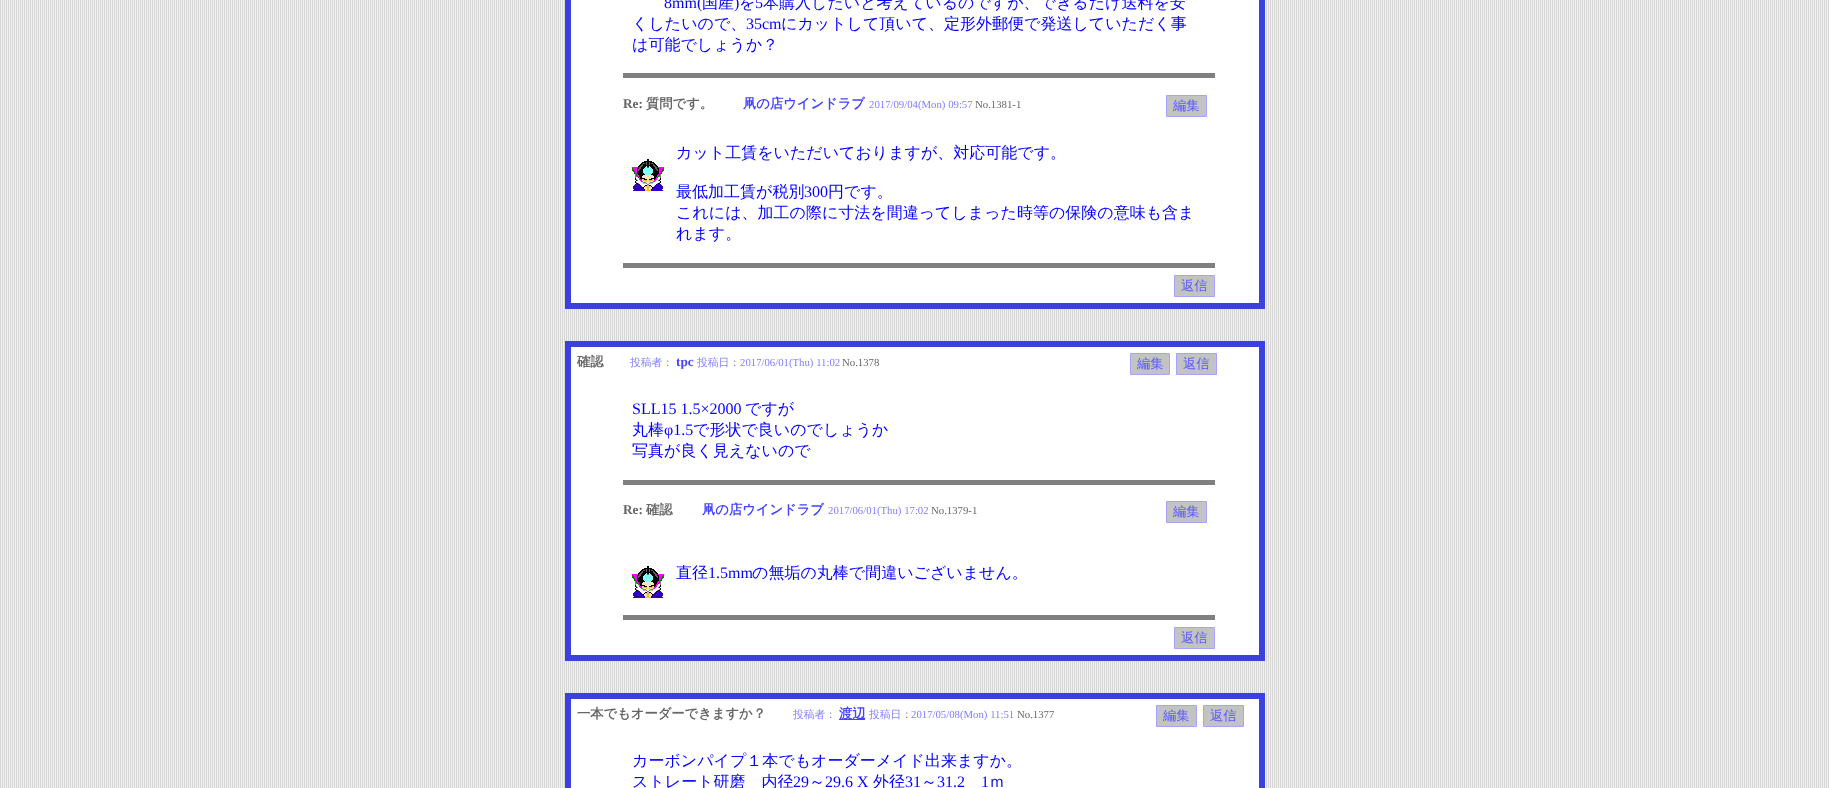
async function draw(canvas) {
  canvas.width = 1829
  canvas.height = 788
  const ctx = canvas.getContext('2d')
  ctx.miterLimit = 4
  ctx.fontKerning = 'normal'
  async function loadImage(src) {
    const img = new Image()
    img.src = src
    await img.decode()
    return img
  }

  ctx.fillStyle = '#eef'
  ctx.fillRect(0, 0, 1829, 788)
  ctx.drawImage(await loadImage('image0.png'), 0, 0, 1829, 788)
  ctx.fillStyle = '#fff'
  ctx.fillRect(571, 0, 688, 303)
  ctx.strokeStyle = '#3c40dd'
  ctx.lineWidth = 5
  ctx.strokeRect(567.5, -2.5, 695, 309)
  ctx.lineWidth = 1
  ctx.strokeRect(570.5, -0.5, 689, 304)
  ctx.font = '16px Liberation Serif'
  ctx.fillStyle = '#00f'
  ctx.fillText('8mm(', 664, 8)
  ctx.font = '500 16px WenQuanYi Zen Hei'
  ctx.fillText('国産', 702, 8)
  ctx.font = '16px Liberation Serif'
  ctx.fillText(')', 734, 8)
  ctx.font = '500 16px WenQuanYi Zen Hei'
  ctx.fillText('を', 739, 8)
  ctx.font = '16px Liberation Serif'
  ctx.fillText('5', 755, 8)
  ctx.font = '500 16px WenQuanYi Zen Hei'
  ctx.fillText('本購入したいと考えているのですが、できるだけ送料を安', 763, 8)
  ctx.fillText('くしたいので、', 632, 29)
  ctx.font = '16px Liberation Serif'
  ctx.fillText('35cm', 746, 29)
  ctx.font = '500 16px WenQuanYi Zen Hei'
  ctx.fillText('にカットして頂いて、定形外郵便で発送していただく事', 781, 29)
  ctx.fillText('は可能でしょうか？', 632, 50)
  ctx.fillStyle = '#808080'
  ctx.fillRect(623, 73, 592, 5)
  ctx.font = 'bold 13.3px Liberation Serif'
  ctx.fillStyle = '#666'
  ctx.fillText('Re:', 623, 108)
  ctx.font = 'bold 13.3px WenQuanYi Zen Hei'
  ctx.fillText('質問です。', 646, 108)
  ctx.fillStyle = '#44f'
  ctx.fillText('凧の店ウインドラブ', 743, 108)
  ctx.font = '10.75px Liberation Serif'
  ctx.fillStyle = '#8080ff'
  ctx.fillText('2017/09/04(Mon) 09:57', 869, 108)
  ctx.fillStyle = '#666'
  ctx.fillText('No.1381-1', 975, 108)
  ctx.fillStyle = '#c3c3c3'
  ctx.beginPath()
  ctx.rect(1166.5, 95.5, 40, 21)
  ctx.fill()
  ctx.strokeStyle = '#a4a4ff'
  ctx.stroke()
  ctx.font = '500 13.3px WenQuanYi Zen Hei'
  ctx.fillStyle = '#5959ff'
  ctx.fillText('編集', 1173, 110)
  ctx.drawImage(await loadImage('image1.png'), 632, 159, 32, 32)
  ctx.font = '500 16px WenQuanYi Zen Hei'
  ctx.fillStyle = '#00f'
  ctx.fillText('カット工賃をいただいておりますが、対応可能です。', 676, 158)
  ctx.fillText('最低加工賃が税別', 676, 197)
  ctx.font = '16px Liberation Serif'
  ctx.fillText('300', 804, 197)
  ctx.font = '500 16px WenQuanYi Zen Hei'
  ctx.fillText('円です。', 828, 197)
  ctx.fillText('これには、加工の際に寸法を間違ってしまった時等の保険の意味も含ま', 676, 218)
  ctx.fillText('れます。', 676, 239)
  ctx.fillStyle = '#808080'
  ctx.fillRect(623, 263, 592, 5)
  ctx.fillStyle = '#c3c3c3'
  ctx.beginPath()
  ctx.rect(1174.5, 275.5, 40, 21)
  ctx.fill()
  ctx.stroke()
  ctx.font = '500 13.3px WenQuanYi Zen Hei'
  ctx.fillStyle = '#5959ff'
  ctx.fillText('返信', 1181, 290)
  ctx.fillStyle = '#fff'
  ctx.fillRect(571, 347, 688, 308)
  ctx.strokeStyle = '#3c40dd'
  ctx.lineWidth = 5
  ctx.strokeRect(567.5, 343.5, 695, 315)
  ctx.lineWidth = 1
  ctx.strokeRect(570.5, 346.5, 689, 309)
  ctx.font = 'bold 13.3px WenQuanYi Zen Hei'
  ctx.fillStyle = '#666'
  ctx.fillText('確認', 577, 366)
  ctx.font = '500 10.75px WenQuanYi Zen Hei'
  ctx.fillStyle = '#8080ff'
  ctx.fillText('投稿者：', 630, 366)
  ctx.font = 'bold 13.3px Liberation Serif'
  ctx.fillStyle = '#44f'
  ctx.fillText('tpc', 676, 366)
  ctx.font = '500 10.75px WenQuanYi Zen Hei'
  ctx.fillStyle = '#8080ff'
  ctx.fillText('投稿日：', 697, 366)
  ctx.font = '10.75px Liberation Serif'
  ctx.fillText('2017/06/01(Thu) 11:02', 740, 366)
  ctx.fillStyle = '#666'
  ctx.fillText('No.1378', 842, 366)
  ctx.fillStyle = '#c3c3c3'
  ctx.beginPath()
  ctx.rect(1130.5, 353.5, 39, 21)
  ctx.fill()
  ctx.strokeStyle = '#a4a4ff'
  ctx.stroke()
  ctx.font = '500 13.3px WenQuanYi Zen Hei'
  ctx.fillStyle = '#5959ff'
  ctx.fillText('編集', 1137, 368)
  ctx.fillStyle = '#c3c3c3'
  ctx.beginPath()
  ctx.rect(1176.5, 353.5, 40, 21)
  ctx.fill()
  ctx.stroke()
  ctx.fillStyle = '#5959ff'
  ctx.fillText('返信', 1183, 368)
  ctx.font = '16px Liberation Serif'
  ctx.fillStyle = '#00f'
  ctx.fillText('SLL15 1.5×2000', 632, 414)
  ctx.font = '500 16px WenQuanYi Zen Hei'
  ctx.fillText('ですが', 745, 414)
  ctx.fillText('丸棒', 632, 435)
  ctx.font = '16px Liberation Serif'
  ctx.fillText('φ1.5', 664, 435)
  ctx.font = '500 16px WenQuanYi Zen Hei'
  ctx.fillText('で形状で良いのでしょうか', 693, 435)
  ctx.fillText('写真が良く見えないので', 632, 456)
  ctx.fillStyle = '#808080'
  ctx.fillRect(623, 480, 592, 5)
  ctx.font = 'bold 13.3px Liberation Serif'
  ctx.fillStyle = '#666'
  ctx.fillText('Re:', 623, 514)
  ctx.font = 'bold 13.3px WenQuanYi Zen Hei'
  ctx.fillText('確認', 646, 514)
  ctx.fillStyle = '#44f'
  ctx.fillText('凧の店ウインドラブ', 702, 514)
  ctx.font = '10.75px Liberation Serif'
  ctx.fillStyle = '#8080ff'
  ctx.fillText('2017/06/01(Thu) 17:02', 828, 514)
  ctx.fillStyle = '#666'
  ctx.fillText('No.1379-1', 931, 514)
  ctx.fillStyle = '#c3c3c3'
  ctx.beginPath()
  ctx.rect(1166.5, 501.5, 40, 21)
  ctx.fill()
  ctx.stroke()
  ctx.font = '500 13.3px WenQuanYi Zen Hei'
  ctx.fillStyle = '#5959ff'
  ctx.fillText('編集', 1173, 516)
  ctx.drawImage(await loadImage('image1.png'), 632, 566, 32, 32)
  ctx.font = '500 16px WenQuanYi Zen Hei'
  ctx.fillStyle = '#00f'
  ctx.fillText('直径', 676, 578)
  ctx.font = '16px Liberation Serif'
  ctx.fillText('1.5mm', 708, 578)
  ctx.font = '500 16px WenQuanYi Zen Hei'
  ctx.fillText('の無垢の丸棒で間違いございません。', 752, 578)
  ctx.fillStyle = '#808080'
  ctx.fillRect(623, 615, 592, 5)
  ctx.fillStyle = '#c3c3c3'
  ctx.beginPath()
  ctx.rect(1174.5, 627.5, 40, 21)
  ctx.fill()
  ctx.stroke()
  ctx.font = '500 13.3px WenQuanYi Zen Hei'
  ctx.fillStyle = '#5959ff'
  ctx.fillText('返信', 1181, 642)
  ctx.fillStyle = '#fff'
  ctx.fillRect(571, 699, 688, 89)
  ctx.strokeStyle = '#3c40dd'
  ctx.lineWidth = 5
  ctx.strokeRect(567.5, 695.5, 695, 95)
  ctx.lineWidth = 1
  ctx.strokeRect(570.5, 698.5, 689, 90)
  ctx.font = 'bold 13.3px WenQuanYi Zen Hei'
  ctx.fillStyle = '#666'
  ctx.fillText('一本でもオーダーできますか？', 577, 718)
  ctx.font = '500 10.75px WenQuanYi Zen Hei'
  ctx.fillStyle = '#8080ff'
  ctx.fillText('投稿者：', 793, 718)
  ctx.fillStyle = '#44f'
  ctx.fillRect(839, 719, 26, 1)
  ctx.font = 'bold 13.3px WenQuanYi Zen Hei'
  ctx.fillText('渡辺', 839, 718)
  ctx.font = '500 10.75px WenQuanYi Zen Hei'
  ctx.fillStyle = '#8080ff'
  ctx.fillText('投稿日：', 869, 718)
  ctx.font = '10.75px Liberation Serif'
  ctx.fillText('2017/05/08(Mon) 11:51', 911, 718)
  ctx.fillStyle = '#666'
  ctx.fillText('No.1377', 1017, 718)
  ctx.fillStyle = '#c3c3c3'
  ctx.beginPath()
  ctx.rect(1156.5, 705.5, 40, 21)
  ctx.fill()
  ctx.strokeStyle = '#a4a4ff'
  ctx.stroke()
  ctx.font = '500 13.3px WenQuanYi Zen Hei'
  ctx.fillStyle = '#5959ff'
  ctx.fillText('編集', 1163, 720)
  ctx.fillStyle = '#c3c3c3'
  ctx.beginPath()
  ctx.rect(1203.5, 705.5, 40, 21)
  ctx.fill()
  ctx.stroke()
  ctx.fillStyle = '#5959ff'
  ctx.fillText('返信', 1210, 720)
  ctx.font = '500 16px WenQuanYi Zen Hei'
  ctx.fillStyle = '#00f'
  ctx.fillText('カーボンパイプ１本でもオーダーメイド出来ますか。', 632, 766)
  ctx.fillText('ストレート研磨　内径', 632, 787)
  ctx.font = '16px Liberation Serif'
  ctx.fillText('29', 793, 787)
  ctx.font = '500 16px WenQuanYi Zen Hei'
  ctx.fillText('～', 809, 787)
  ctx.font = '16px Liberation Serif'
  ctx.fillText('29.6 X', 825, 787)
  ctx.font = '500 16px WenQuanYi Zen Hei'
  ctx.fillText('外径', 873, 787)
  ctx.font = '16px Liberation Serif'
  ctx.fillText('31', 905, 787)
  ctx.font = '500 16px WenQuanYi Zen Hei'
  ctx.fillText('～', 921, 787)
  ctx.font = '16px Liberation Serif'
  ctx.fillText('31.2', 937, 787)
  ctx.fillText('1', 981, 787)
  ctx.font = '500 16px WenQuanYi Zen Hei'
  ctx.fillText('ｍ', 989, 787)
}

draw(document.querySelector('canvas'))
